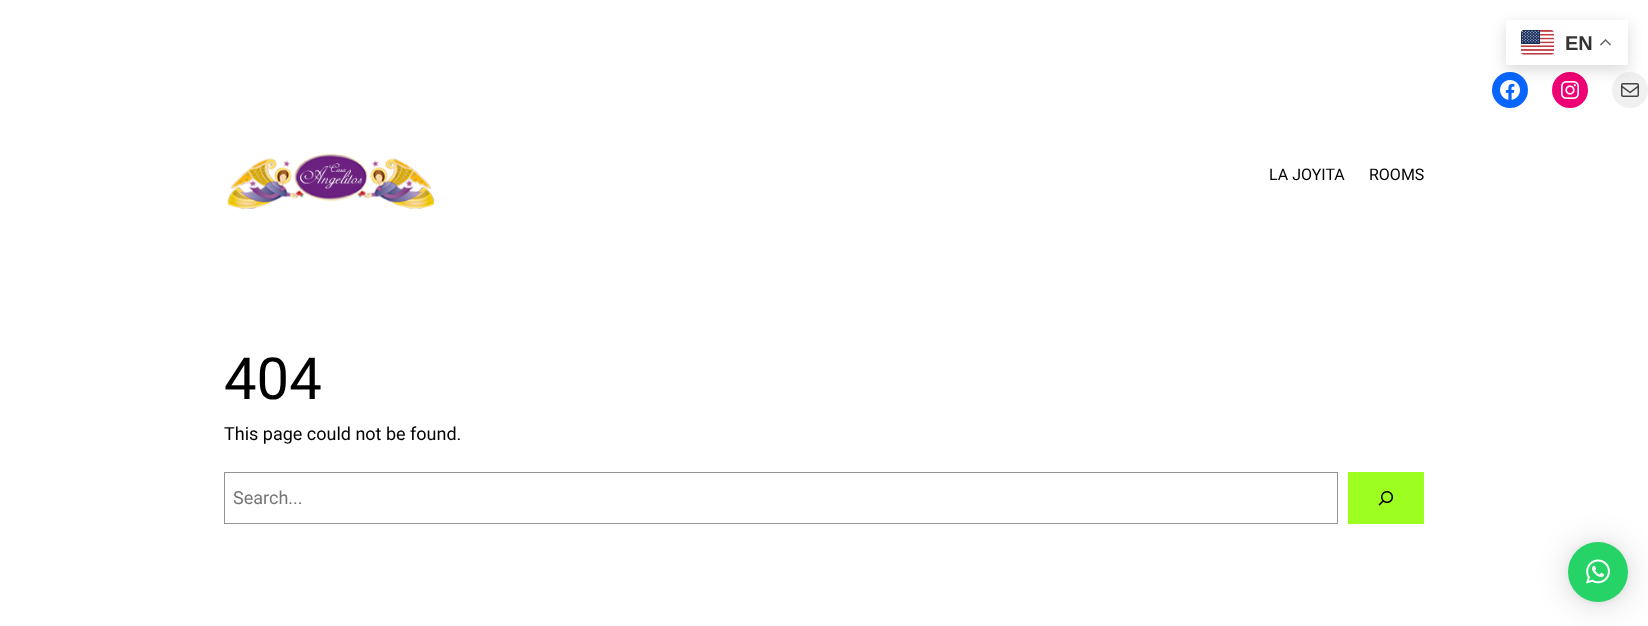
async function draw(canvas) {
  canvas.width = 1648
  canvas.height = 626
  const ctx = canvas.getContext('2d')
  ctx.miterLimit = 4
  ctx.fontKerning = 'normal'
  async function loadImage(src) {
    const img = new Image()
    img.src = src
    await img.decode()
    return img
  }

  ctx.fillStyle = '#fff'
  ctx.fillRect(0, 0, 1648, 626)
  ctx.fillStyle = '#0866ff'
  ctx.beginPath()
  ctx.arc(1510, 90, 18, 0, 2 * Math.PI)
  ctx.fill()
  ctx.drawImage(await loadImage('image2.png'), 1500, 80, 20, 20)
  ctx.fillStyle = '#f00075'
  ctx.beginPath()
  ctx.arc(1570, 90, 18, 0, 2 * Math.PI)
  ctx.fill()
  ctx.drawImage(await loadImage('image3.png'), 1561, 81, 18, 18)
  ctx.fillStyle = '#f0f0f0'
  ctx.beginPath()
  ctx.arc(1630, 90, 18, 0, 2 * Math.PI)
  ctx.fill()
  ctx.drawImage(await loadImage('image4.png'), 1621, 83, 18, 14)
  ctx.fillStyle = '#00000026'
  ctx.filter = 'blur(7.5px)'
  ctx.beginPath()
  ctx.roundRect(1506, 25, 122, 45, 2)
  ctx.fill()
  ctx.filter = 'none'
  ctx.fillStyle = '#fff'
  ctx.beginPath()
  ctx.roundRect(1506, 20, 122, 45, 2)
  ctx.fill()
  ctx.drawImage(await loadImage('image0.png'), 1521, 30, 33, 25)
  ctx.font = 'bold 20px Liberation Sans'
  ctx.fillStyle = '#333'
  ctx.fillText('EN', 1565, 50)
  ctx.drawImage(await loadImage('image1.png'), 1600, 39, 11, 7)
  ctx.drawImage(await loadImage('image5.png'), 227, 153, 207, 56)
  ctx.font = '16px Roboto'
  ctx.fillStyle = '#000'
  ctx.fillText('LA JOYITA', 1269, 180)
  ctx.fillText('ROOMS', 1369, 180)
  ctx.font = '58px Roboto'
  ctx.fillText('404', 224, 399)
  ctx.font = '18px Roboto'
  ctx.fillText('This page could not be found.', 224, 440)
  ctx.strokeStyle = '#949494'
  ctx.strokeRect(224.5, 472.5, 1113, 51)
  ctx.fillStyle = '#757575'
  ctx.fillText('Search...', 233, 504)
  ctx.fillStyle = '#9dff20'
  ctx.fillRect(1348, 472, 76, 52)
  ctx.drawImage(await loadImage('image6.png'), 1378, 491, 16, 15)
  ctx.fillStyle = '#00000029'
  ctx.filter = 'blur(16px)'
  ctx.beginPath()
  ctx.roundRect(1568, 544, 60, 60, 30)
  ctx.fill()
  ctx.filter = 'none'
  ctx.fillStyle = '#0000000f'
  ctx.filter = 'blur(3px)'
  ctx.beginPath()
  ctx.roundRect(1568, 543, 60, 60, 30)
  ctx.fill()
  ctx.filter = 'none'
  ctx.fillStyle = '#25d366'
  ctx.beginPath()
  ctx.arc(1598, 572, 30, 0, 2 * Math.PI)
  ctx.fill()
  ctx.drawImage(await loadImage('image7.png'), 1586, 559, 24, 25)
}

draw(document.querySelector('canvas'))
